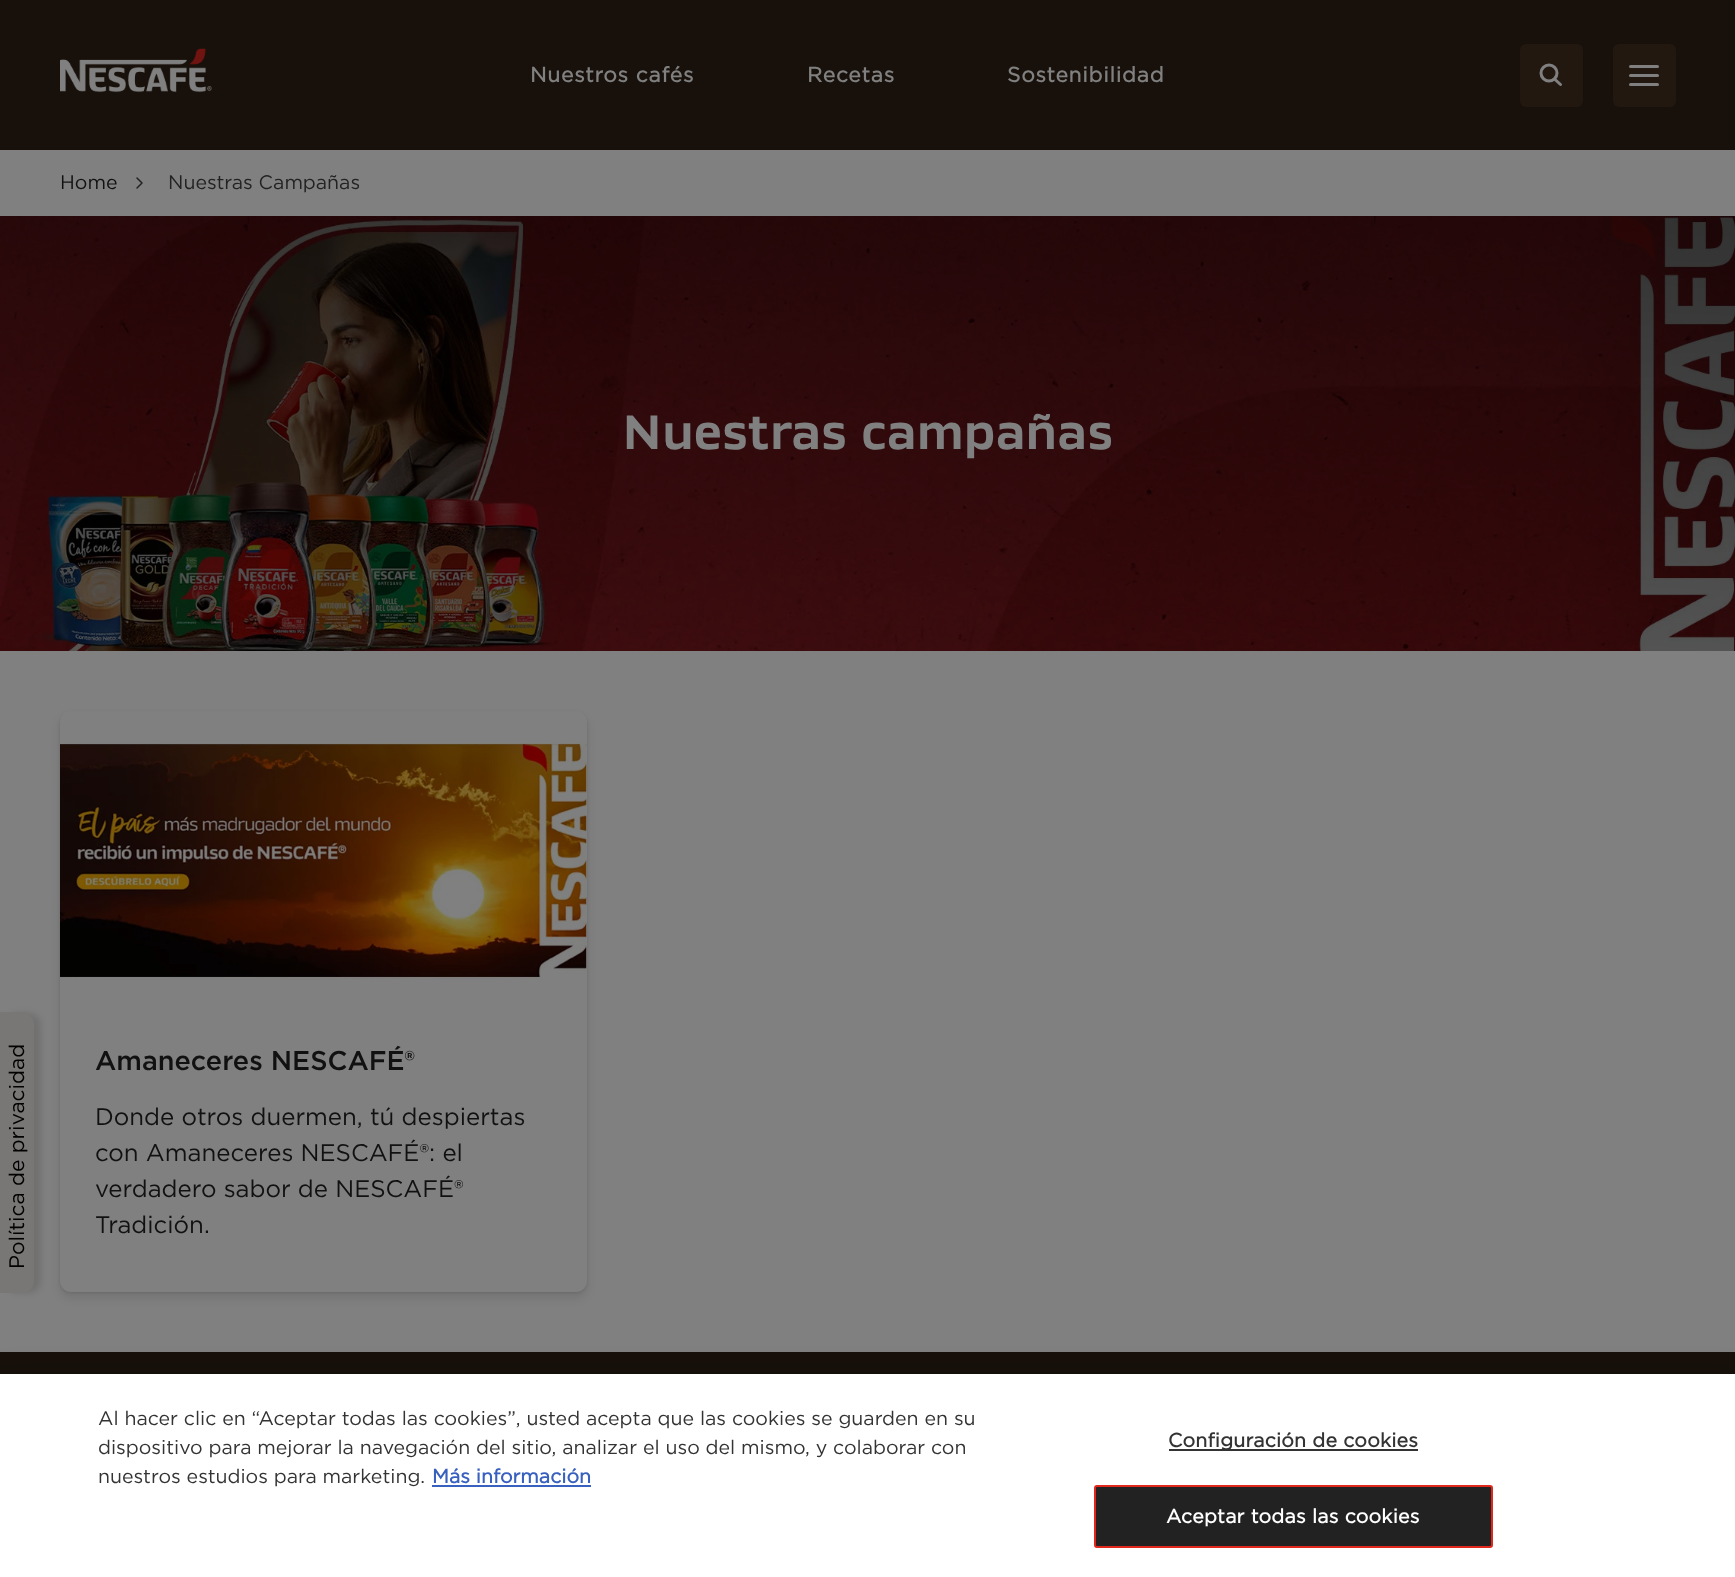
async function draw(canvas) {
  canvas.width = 1735
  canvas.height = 1577
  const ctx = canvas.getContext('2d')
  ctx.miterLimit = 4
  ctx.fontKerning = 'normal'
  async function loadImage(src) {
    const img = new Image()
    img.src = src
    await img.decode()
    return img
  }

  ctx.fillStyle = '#808080'
  ctx.fillRect(0, 0, 1735, 1577)
  ctx.fillStyle = '#18110b'
  ctx.fillRect(0, 0, 1735, 150)
  ctx.drawImage(await loadImage('image0.png'), 60, 48, 152, 45)
  ctx.letterSpacing = '0.75px'
  ctx.font = 'bold 21px Gotham'
  ctx.fillStyle = '#808080'
  ctx.fillText('Nuestros cafés', 530, 82)
  ctx.fillText('Recetas', 807, 82)
  ctx.fillText('Sostenibilidad', 1007, 82)
  ctx.fillStyle = '#221810'
  ctx.beginPath()
  ctx.roundRect(1520, 44, 63, 63, 6)
  ctx.fill()
  ctx.beginPath()
  ctx.arc(1549, 73, 8, 0, 2 * Math.PI)
  ctx.strokeStyle = '#808080'
  ctx.lineWidth = 3
  ctx.stroke()
  ctx.beginPath()
  ctx.moveTo(1560.5, 84.5)
  ctx.lineTo(1555, 79.5)
  ctx.lineCap = 'round'
  ctx.lineJoin = 'round'
  ctx.stroke()
  ctx.beginPath()
  ctx.roundRect(1613, 44, 63, 63, 6)
  ctx.fill()
  ctx.fillStyle = '#808080'
  ctx.beginPath()
  ctx.roundRect(1629, 65, 30, 3, 1.5)
  ctx.fill()
  ctx.beginPath()
  ctx.roundRect(1629, 74, 30, 3, 1.5)
  ctx.fill()
  ctx.beginPath()
  ctx.roundRect(1629, 83, 30, 3, 1.5)
  ctx.fill()
  ctx.letterSpacing = '0px'
  ctx.font = '19.5px Gotham'
  ctx.fillStyle = '#111'
  ctx.fillText('Home', 60, 189)
  ctx.fillStyle = '#222'
  ctx.fillText('Nuestras Campañas', 168, 189)
  ctx.beginPath()
  ctx.moveTo(137, 188)
  ctx.lineTo(142, 183)
  ctx.lineTo(137, 178)
  ctx.strokeStyle = '#222'
  ctx.lineWidth = 1.5
  ctx.stroke()
  ctx.drawImage(await loadImage('image1.png'), 0, 216, 1735, 435)
  ctx.font = 'bold 48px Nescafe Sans'
  ctx.fillStyle = '#808080'
  ctx.fillText('Nuestras campañas', 622, 449)
  ctx.fillStyle = '#0000001f'
  ctx.filter = 'blur(3px)'
  ctx.beginPath()
  ctx.roundRect(6, 1013, 35, 280, 12)
  ctx.fill()
  ctx.filter = 'none'
  ctx.fillStyle = '#797775'
  ctx.beginPath()
  ctx.moveTo(22, 1293)
  ctx.lineTo(0, 1293)
  ctx.lineTo(0, 1012)
  ctx.lineTo(22, 1012)
  ctx.bezierCurveTo(29, 1012, 34, 1018, 34, 1024)
  ctx.lineTo(34, 1281)
  ctx.bezierCurveTo(34, 1288, 29, 1293, 22, 1293)
  ctx.closePath()
  ctx.fill()
  ctx.font = '21px Gotham'
  ctx.fillStyle = '#000'
  ctx.save()
  ctx.translate(24, 1269)
  ctx.rotate(-90 * Math.PI / 180)
  ctx.fillText('Política de privacidad', 0, 0)
  ctx.restore()
  ctx.fillStyle = '#18110b'
  ctx.fillRect(0, 1352, 1735, 22)
  ctx.fillStyle = '#00000014'
  ctx.filter = 'blur(4.5px)'
  ctx.beginPath()
  ctx.roundRect(59, 716, 529, 583, 12)
  ctx.fill()
  ctx.filter = 'none'
  ctx.fillStyle = '#0000001a'
  ctx.filter = 'blur(1.5px)'
  ctx.beginPath()
  ctx.roundRect(60, 713, 527, 580, 11)
  ctx.fill()
  ctx.filter = 'none'
  ctx.fillStyle = '#808080'
  ctx.beginPath()
  ctx.roundRect(60, 711, 527, 581, 11)
  ctx.fill()
  ctx.drawImage(await loadImage('image2.png'), 60, 743, 527, 237)
  ctx.font = '500 27px Gotham'
  ctx.fillStyle = '#111'
  ctx.fillText('Amaneceres NESCAFÉ®', 95, 1070)
  ctx.font = '24px Gotham'
  ctx.fillText('Donde otros duermen, tú despiertas', 95, 1125)
  ctx.fillText('con Amaneceres NESCAFÉ®: el', 95, 1161)
  ctx.fillText('verdadero sabor de NESCAFÉ®', 95, 1197)
  ctx.fillText('Tradición.', 95, 1233)
  ctx.fillStyle = '#00000033'
  ctx.filter = 'blur(13.5px)'
  ctx.beginPath()
  ctx.rect(0, 1374, 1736, 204)
  ctx.fill()
  ctx.filter = 'none'
  ctx.fillStyle = '#fff'
  ctx.fillRect(0, 1374, 1735, 203)
  ctx.font = '19.5px Gotham'
  ctx.fillStyle = '#333'
  ctx.fillText('Al hacer clic en “Aceptar todas las cookies”, usted acepta que las cookies se guarden en su', 98, 1425)
  ctx.fillText('dispositivo para mejorar la navegación del sitio, analizar el uso del mismo, y colaborar con', 98, 1454)
  ctx.fillText('nuestros estudios para marketing.', 98, 1483)
  ctx.font = 'bold 19.5px Gotham'
  ctx.fillStyle = '#3860be'
  ctx.fillText('Más información', 432, 1483)
  ctx.fillRect(432, 1485, 159, 2)
  ctx.fillStyle = '#333'
  ctx.fillRect(1169, 1449, 249, 2)
  ctx.letterSpacing = '0.2px'
  ctx.fillText('Configuración de cookies', 1168, 1447)
  ctx.fillStyle = '#222'
  ctx.beginPath()
  ctx.roundRect(1095, 1486, 397, 61, 2)
  ctx.fill()
  ctx.strokeStyle = '#e1261c'
  ctx.lineWidth = 2
  ctx.lineJoin = 'miter'
  ctx.stroke()
  ctx.fillStyle = '#fff'
  ctx.fillText('Aceptar todas las cookies', 1166, 1523)
}

draw(document.querySelector('canvas'))
